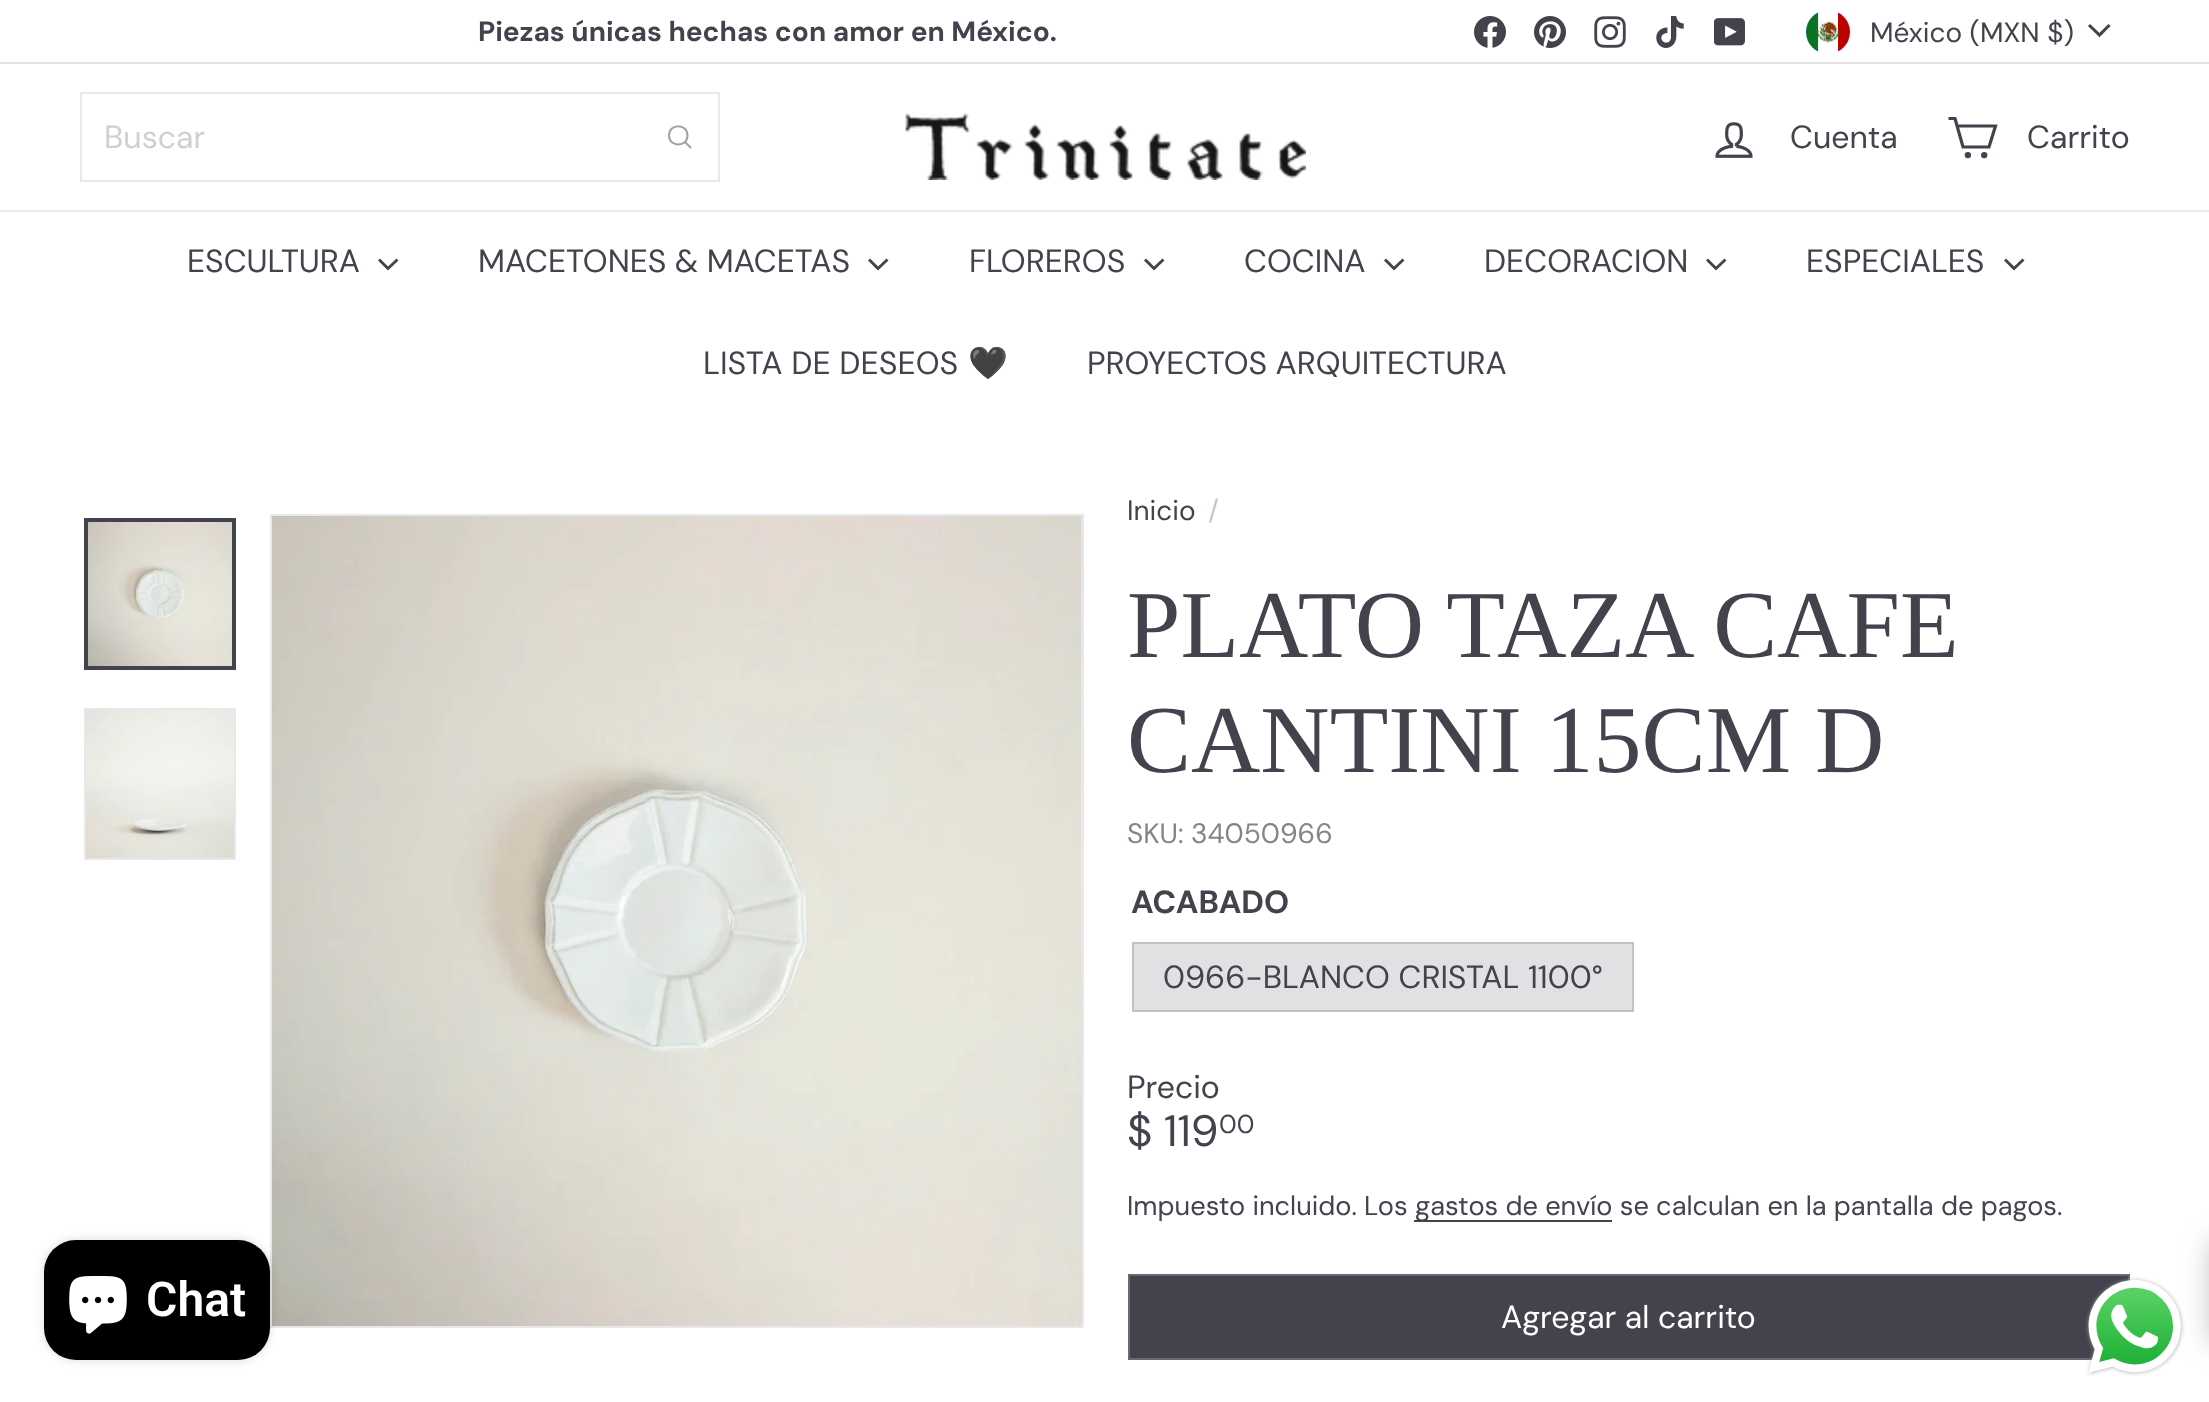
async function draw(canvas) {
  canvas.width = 2209
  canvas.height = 1402
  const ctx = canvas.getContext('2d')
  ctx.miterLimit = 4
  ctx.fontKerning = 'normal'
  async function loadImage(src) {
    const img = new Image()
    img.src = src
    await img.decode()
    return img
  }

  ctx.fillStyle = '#fff'
  ctx.fillRect(0, 0, 2209, 1402)
  ctx.font = 'bold 28px "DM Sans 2"'
  ctx.fillStyle = '#42434d'
  ctx.fillText('Piezas únicas hechas con amor en México.', 478, 41)
  ctx.drawImage(await loadImage('image0.png'), 1474, 16, 32, 32)
  ctx.drawImage(await loadImage('image1.png'), 1534, 16, 32, 32)
  ctx.drawImage(await loadImage('image2.png'), 1594, 16, 32, 32)
  ctx.drawImage(await loadImage('image3.png'), 1656, 16, 28, 32)
  ctx.drawImage(await loadImage('image4.png'), 1714, 18, 31, 28)
  ctx.drawImage(await loadImage('image5.png'), 1806, 12, 44, 40)
  ctx.font = '28px DM Sans'
  ctx.fillText('México (MXN $)', 1870, 42)
  ctx.beginPath()
  ctx.moveTo(2089, 25)
  ctx.lineTo(2099.5, 35)
  ctx.lineTo(2109.5, 25)
  ctx.strokeStyle = '#42434d'
  ctx.lineWidth = 3.1
  ctx.stroke()
  ctx.fillStyle = '#e3e3e4'
  ctx.fillRect(0, 62, 2209, 2)
  ctx.strokeStyle = '#e8e8ea'
  ctx.lineWidth = 2
  ctx.strokeRect(81, 93, 638, 88)
  ctx.font = '32px "DM Sans 2"'
  ctx.fillStyle = '#d0d0d3'
  ctx.fillText('Buscar', 104, 148)
  ctx.beginPath()
  ctx.moveTo(687.5, 135.5)
  ctx.bezierCurveTo(687.5, 147.5, 669, 147.5, 669, 135.5)
  ctx.bezierCurveTo(669, 123, 687.5, 123, 687.5, 135.5)
  ctx.moveTo(691, 148)
  ctx.lineTo(685, 142)
  ctx.strokeStyle = '#a1a1a6'
  ctx.stroke()
  ctx.drawImage(await loadImage('image6.png'), 905, 113, 401, 67)
  ctx.drawImage(await loadImage('image7.png'), 1715, 122, 38, 36)
  ctx.fillStyle = '#42434d'
  ctx.fillText('Cuenta', 1790, 148)
  ctx.beginPath()
  ctx.moveTo(1957.5, 126)
  ctx.lineTo(1995.5, 126)
  ctx.lineTo(1989, 147)
  ctx.lineTo(1963, 147)
  ctx.lineTo(1955, 118.5)
  ctx.lineTo(1948.5, 118.5)
  ctx.strokeStyle = '#42434d'
  ctx.lineWidth = 3.2
  ctx.stroke()
  ctx.beginPath()
  ctx.arc(1967.9, 155.1, 1.6, 0, 2 * Math.PI)
  ctx.stroke()
  ctx.beginPath()
  ctx.arc(1984.2, 155.1, 1.6, 0, 2 * Math.PI)
  ctx.stroke()
  ctx.fillText('Carrito', 2027, 148)
  ctx.fillStyle = '#ececed'
  ctx.fillRect(0, 210, 2209, 2)
  ctx.fillStyle = '#42434d'
  ctx.fillText('ESCULTURA', 187, 272)
  ctx.beginPath()
  ctx.moveTo(379, 259.5)
  ctx.lineTo(388, 268.5)
  ctx.lineTo(397.5, 259.5)
  ctx.lineWidth = 2.9
  ctx.stroke()
  ctx.fillText('MACETONES & MACETAS', 478, 272)
  ctx.beginPath()
  ctx.moveTo(869, 259.5)
  ctx.lineTo(878, 268.5)
  ctx.lineTo(887.5, 259.5)
  ctx.stroke()
  ctx.fillText('FLOREROS', 969, 272)
  ctx.beginPath()
  ctx.moveTo(1145, 259.5)
  ctx.lineTo(1154, 268.5)
  ctx.lineTo(1163.5, 259.5)
  ctx.stroke()
  ctx.fillText('COCINA', 1244, 272)
  ctx.beginPath()
  ctx.moveTo(1385, 259.5)
  ctx.lineTo(1394, 268.5)
  ctx.lineTo(1403.5, 259.5)
  ctx.stroke()
  ctx.fillText('DECORACION', 1484, 272)
  ctx.beginPath()
  ctx.moveTo(1707, 259.5)
  ctx.lineTo(1716, 268.5)
  ctx.lineTo(1725.5, 259.5)
  ctx.stroke()
  ctx.fillText('ESPECIALES', 1806, 272)
  ctx.beginPath()
  ctx.moveTo(2005, 259.5)
  ctx.lineTo(2014, 268.5)
  ctx.lineTo(2023.5, 259.5)
  ctx.stroke()
  ctx.font = '32px "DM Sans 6"'
  ctx.fillText('LISTA DE DESEOS', 703, 374)
  ctx.font = '32px Noto Color Emoji'
  ctx.fillText('🖤', 968, 374)
  ctx.font = '32px "DM Sans 2"'
  ctx.fillText('PROYECTOS ARQUITECTURA', 1087, 374)
  ctx.drawImage(await loadImage('image8.png'), 88, 522, 144, 144)
  ctx.lineWidth = 4
  ctx.strokeRect(86, 520, 148, 148)
  ctx.strokeStyle = '#e8e8ea'
  ctx.lineWidth = 2
  ctx.strokeRect(85, 709, 150, 150)
  ctx.drawImage(await loadImage('image9.png'), 86, 710, 148, 148)
  ctx.strokeRect(271, 515, 812, 812)
  ctx.drawImage(await loadImage('image10.png'), 272, 516, 810, 810)
  ctx.drawImage(await loadImage('image11.png'), 1081, 516, 1, 792)
  ctx.font = '28px DM Sans'
  ctx.fillText('Inicio', 1127, 520)
  ctx.fillStyle = '#c6c7ca'
  ctx.fillText('/', 1208, 520)
  ctx.font = '96px Liberation Serif'
  ctx.fillStyle = '#42434d'
  ctx.fillText('PLATO TAZA CAFE', 1127, 657)
  ctx.fillText('CANTINI 15CM D', 1127, 772)
  ctx.font = '28px DM Sans'
  ctx.fillStyle = '#84858b'
  ctx.fillText('SKU: 34050966', 1127, 843)
  ctx.font = 'bold 32px DM Sans'
  ctx.fillStyle = '#42434d'
  ctx.fillText('ACABADO', 1131, 913)
  ctx.fillStyle = '#e1e1e3'
  ctx.beginPath()
  ctx.rect(1133, 943, 500, 68)
  ctx.fill()
  ctx.strokeStyle = '#c1c1c5'
  ctx.stroke()
  ctx.font = '32px "DM Sans 2"'
  ctx.fillStyle = '#42434d'
  ctx.fillText('0966-BLANCO CRISTAL 1100°', 1163, 988)
  ctx.fillText('Precio', 1127, 1098)
  ctx.font = '44px "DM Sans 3"'
  ctx.fillText('$ 119', 1127, 1146)
  ctx.font = '26px "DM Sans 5"'
  ctx.fillText('00', 1219, 1133)
  ctx.font = '27.2px "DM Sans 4"'
  ctx.fillText('Impuesto incluido. Los', 1127, 1215)
  ctx.fillRect(1414, 1220, 198, 2)
  ctx.fillText('gastos de envío se calculan en la pantalla de pagos.', 1415, 1215)
  ctx.beginPath()
  ctx.rect(1129, 1275, 1000, 84)
  ctx.fill()
  ctx.strokeStyle = '#686971'
  ctx.stroke()
  ctx.font = '32px "DM Sans 2"'
  ctx.fillStyle = '#fff'
  ctx.fillText('Agregar al carrito', 1501, 1328)
  ctx.fillStyle = '#75757580'
  ctx.filter = 'blur(14px)'
  ctx.beginPath()
  ctx.rect(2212, 1242, 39, 100)
  ctx.fill()
  ctx.filter = 'none'
  ctx.drawImage(await loadImage('image12.png'), 2085, 1277, 100, 99)
  ctx.fillStyle = '#00000026'
  ctx.filter = 'blur(5px)'
  ctx.beginPath()
  ctx.roundRect(44, 1240, 226, 120, 32)
  ctx.fill()
  ctx.filter = 'none'
  ctx.fillStyle = '#000'
  ctx.beginPath()
  ctx.roundRect(44, 1240, 226, 120, 32)
  ctx.fill()
  ctx.drawImage(await loadImage('image13.png'), 69, 1276, 58, 58)
  ctx.font = '600 48px Roboto'
  ctx.fillStyle = '#fff'
  ctx.fillText('Chat', 146, 1316)
}

draw(document.querySelector('canvas'))
